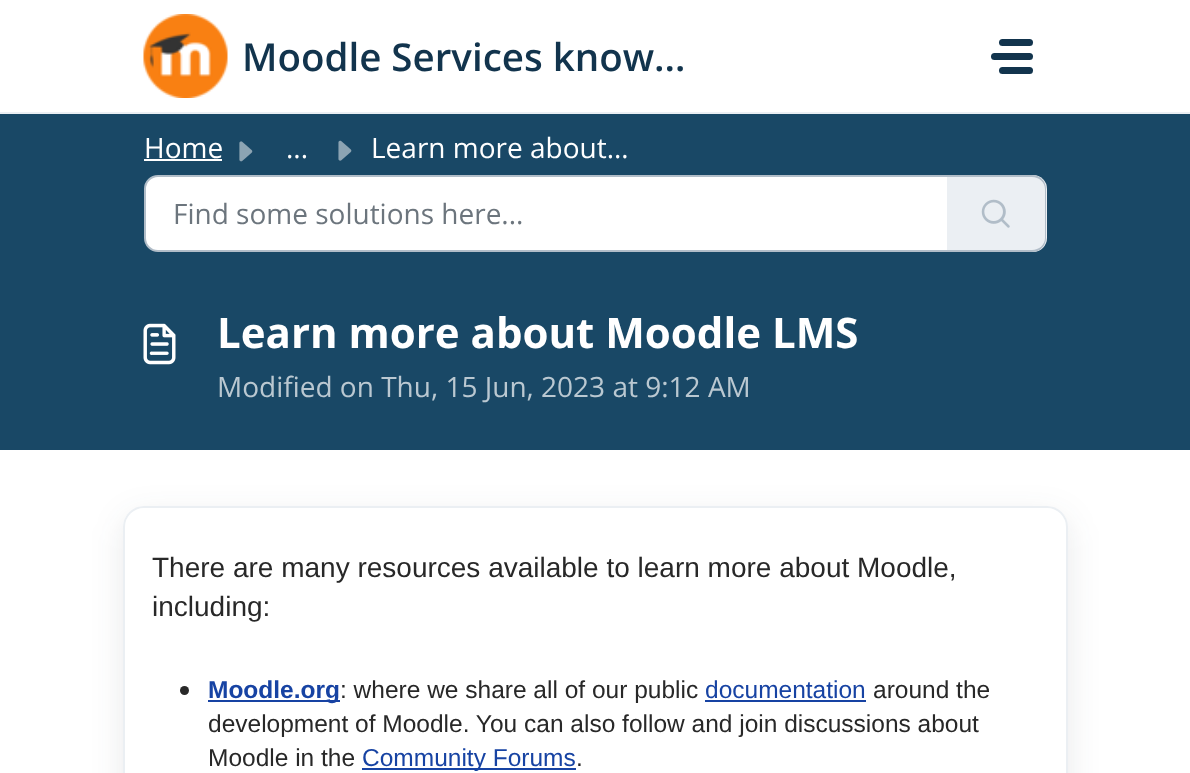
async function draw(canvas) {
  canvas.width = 1190
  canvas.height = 773
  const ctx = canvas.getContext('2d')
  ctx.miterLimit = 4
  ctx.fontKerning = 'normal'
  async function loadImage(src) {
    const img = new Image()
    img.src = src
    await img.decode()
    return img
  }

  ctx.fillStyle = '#fff'
  ctx.fillRect(0, 0, 1190, 773)
  ctx.fillStyle = '#ebeff3'
  ctx.fillRect(0, 112, 1190, 2)
  ctx.drawImage(await loadImage('image0.png'), 143, 14, 85, 84)
  ctx.font = '600 38.5px Open Sans'
  ctx.fillStyle = '#12344d'
  ctx.fillText('Moodle Services know…', 242, 71)
  ctx.beginPath()
  ctx.roundRect(999, 39, 34, 7, 3.5)
  ctx.fill()
  ctx.beginPath()
  ctx.roundRect(991, 53, 42, 7, 3.5)
  ctx.fill()
  ctx.beginPath()
  ctx.roundRect(999, 67, 34, 7, 3.5)
  ctx.fill()
  ctx.fillStyle = '#194866'
  ctx.fillRect(0, 114, 1190, 336)
  ctx.font = '28px Open Sans'
  ctx.fillStyle = '#fff'
  ctx.fillText('Home', 144, 158)
  ctx.fillRect(144, 159, 78, 2)
  ctx.drawImage(await loadImage('image1.png'), 239, 141, 14, 21)
  ctx.fillText('...', 286, 158)
  ctx.drawImage(await loadImage('image2.png'), 338, 140, 14, 21)
  ctx.fillText('Learn more about…', 371, 158)
  ctx.beginPath()
  ctx.roundRect(145, 176, 803, 75, [13, 0, 0, 13])
  ctx.fill()
  ctx.strokeStyle = '#b1bdc8'
  ctx.lineWidth = 2
  ctx.stroke()
  ctx.fillStyle = '#6c757d'
  ctx.fillText('Find some solutions here...', 173, 224)
  ctx.fillStyle = '#ebeff3'
  ctx.beginPath()
  ctx.roundRect(947, 175, 100, 77, [0, 14, 14, 0])
  ctx.fill()
  ctx.fillStyle = '#b1bdc8'
  ctx.beginPath()
  ctx.moveTo(947, 175)
  ctx.lineTo(1032, 175)
  ctx.bezierCurveTo(1040, 175, 1046, 181, 1046, 189)
  ctx.lineTo(1046, 238)
  ctx.bezierCurveTo(1046, 246, 1040, 252, 1032, 252)
  ctx.lineTo(947, 252)
  ctx.closePath()
  ctx.moveTo(947, 177)
  ctx.lineTo(1032, 177)
  ctx.bezierCurveTo(1039, 177, 1045, 182, 1045, 189)
  ctx.lineTo(1045, 238)
  ctx.bezierCurveTo(1045, 245, 1039, 250, 1032, 250)
  ctx.lineTo(947, 250)
  ctx.closePath()
  ctx.fill('evenodd')
  ctx.drawImage(await loadImage('image3.png'), 981, 199, 29, 29)
  ctx.drawImage(await loadImage('image4.png'), 143, 323, 33, 42)
  ctx.font = 'bold 42px Open Sans'
  ctx.fillStyle = '#fff'
  ctx.fillText('Learn more about Moodle LMS', 217, 348)
  ctx.font = '28px Open Sans'
  ctx.fillStyle = '#bac8d1'
  ctx.fillText('Modified on Thu, 15 Jun, 2023 at 9:12 AM', 217, 397)
  ctx.save()
  ctx.beginPath()
  ctx.moveTo(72, 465)
  ctx.lineTo(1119, 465)
  ctx.lineTo(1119, 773)
  ctx.lineTo(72, 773)
  ctx.closePath()
  ctx.moveTo(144, 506)
  ctx.lineTo(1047, 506)
  ctx.bezierCurveTo(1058.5, 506, 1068, 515.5, 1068, 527)
  ctx.lineTo(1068, 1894)
  ctx.bezierCurveTo(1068, 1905.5, 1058.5, 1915, 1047, 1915)
  ctx.lineTo(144, 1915)
  ctx.bezierCurveTo(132.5, 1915, 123, 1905.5, 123, 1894)
  ctx.lineTo(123, 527)
  ctx.bezierCurveTo(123, 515.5, 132.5, 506, 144, 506)
  ctx.closePath()
  ctx.clip('evenodd')
  ctx.fillStyle = '#27313a1a'
  ctx.filter = 'blur(16.5px)'
  ctx.beginPath()
  ctx.roundRect(123, 516, 945, 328, 21)
  ctx.fill()
  ctx.filter = 'none'
  ctx.restore()
  ctx.beginPath()
  ctx.roundRect(124, 507, 943, 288, 20)
  ctx.strokeStyle = '#ebeff3'
  ctx.stroke()
  ctx.font = '28px Liberation Sans'
  ctx.fillStyle = '#282828'
  ctx.fillText('There are many resources available to learn more about Moodle,', 152, 577)
  ctx.fillText('including:', 152, 616)
  ctx.beginPath()
  ctx.arc(184.5, 690.5, 4.5, 0, 2 * Math.PI)
  ctx.fill()
  ctx.fillStyle = '#1743a3'
  ctx.fillRect(208, 700, 132, 2)
  ctx.font = 'bold 24.5px Liberation Sans'
  ctx.fillText('Moodle.org', 208, 698)
  ctx.font = '24.5px Liberation Sans'
  ctx.fillStyle = '#282828'
  ctx.fillText(': where we share all of our public', 340, 698)
  ctx.fillStyle = '#1743a3'
  ctx.fillText('documentation', 705, 698)
  ctx.fillRect(705, 700, 161, 2)
  ctx.fillStyle = '#282828'
  ctx.fillText('around the', 873, 698)
  ctx.fillText('development of Moodle. You can also follow and join discussions about', 208, 732)
  ctx.fillText('Moodle in the', 208, 766)
  ctx.fillStyle = '#1743a3'
  ctx.fillRect(362, 768, 214, 2)
  ctx.fillText('Community Forums', 362, 766)
  ctx.fillStyle = '#282828'
  ctx.fillText('.', 576, 766)
}

draw(document.querySelector('canvas'))
